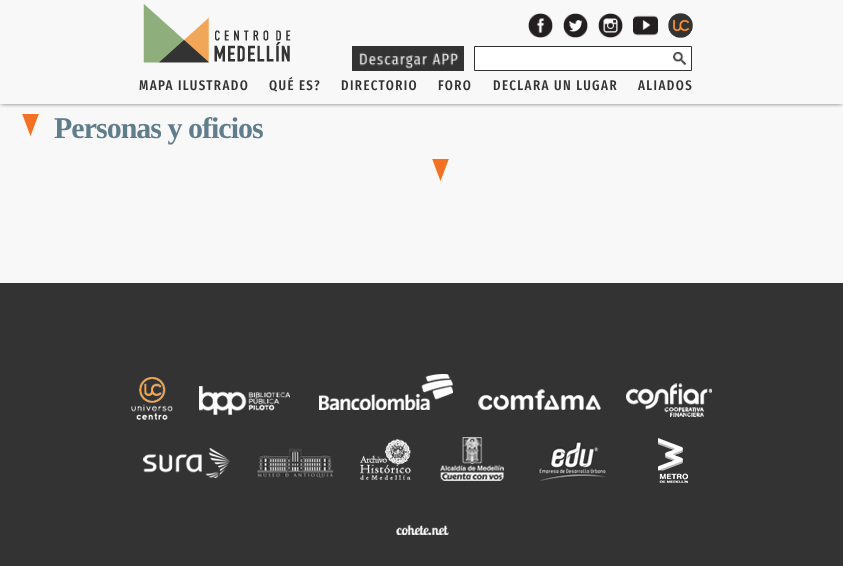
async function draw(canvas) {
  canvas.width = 843
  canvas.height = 566
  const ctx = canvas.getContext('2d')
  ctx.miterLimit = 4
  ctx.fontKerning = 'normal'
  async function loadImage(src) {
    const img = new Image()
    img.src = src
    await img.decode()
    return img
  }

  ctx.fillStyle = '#f8f8f8'
  ctx.fillRect(0, 0, 843, 566)
  ctx.save()
  ctx.beginPath()
  ctx.rect(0, 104, 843, 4)
  ctx.clip()
  ctx.fillStyle = '#333'
  ctx.filter = 'blur(2.5px)'
  ctx.beginPath()
  ctx.rect(1, 1, 841, 102)
  ctx.fill()
  ctx.filter = 'none'
  ctx.restore()
  ctx.drawImage(await loadImage('image0.png'), 143, 4, 148, 59)
  ctx.drawImage(await loadImage('image1.png'), 528, 13, 25, 25)
  ctx.drawImage(await loadImage('image2.png'), 563, 13, 25, 25)
  ctx.drawImage(await loadImage('image3.png'), 598, 13, 25, 25)
  ctx.drawImage(await loadImage('image4.png'), 633, 15, 25, 21)
  ctx.drawImage(await loadImage('image5.png'), 668, 13, 25, 25)
  ctx.drawImage(await loadImage('image6.png'), 352, 46, 112, 25)
  ctx.fillStyle = '#fff'
  ctx.beginPath()
  ctx.rect(474.5, 46.5, 217, 24)
  ctx.fill()
  ctx.strokeStyle = '#333'
  ctx.stroke()
  ctx.drawImage(await loadImage('image7.png'), 673, 52, 14, 14)
  ctx.letterSpacing = '1.4px'
  ctx.font = '500 14px Fira Sans Extra Condensed'
  ctx.fillStyle = '#333'
  ctx.fillText('MAPA ILUSTRADO', 139, 90)
  ctx.fillText('QUÉ ES?', 269, 90)
  ctx.fillText('DIRECTORIO', 341, 90)
  ctx.fillText('FORO', 438, 90)
  ctx.fillText('DECLARA UN LUGAR', 493, 90)
  ctx.fillText('ALIADOS', 638, 90)
  ctx.drawImage(await loadImage('image8.png'), 21, 113, 19, 25)
  ctx.letterSpacing = '-1px'
  ctx.font = 'bold 30px Liberation Serif'
  ctx.fillStyle = '#607d8b'
  ctx.fillText('Personas y oficios', 54, 138)
  ctx.drawImage(await loadImage('image8.png'), 431, 158, 19, 25)
  ctx.fillStyle = '#333'
  ctx.fillRect(0, 283, 843, 283)
  ctx.drawImage(await loadImage('image9.png'), 131, 377, 42, 43)
  ctx.drawImage(await loadImage('image10.png'), 199, 386, 91, 29)
  ctx.drawImage(await loadImage('image11.png'), 319, 374, 134, 36)
  ctx.drawImage(await loadImage('image12.png'), 478, 389, 123, 21)
  ctx.drawImage(await loadImage('image13.png'), 626, 383, 86, 34)
  ctx.drawImage(await loadImage('image14.png'), 143, 448, 87, 30)
  ctx.drawImage(await loadImage('image15.png'), 256, 448, 78, 30)
  ctx.drawImage(await loadImage('image16.png'), 360, 439, 51, 41)
  ctx.drawImage(await loadImage('image17.png'), 440, 437, 64, 44)
  ctx.drawImage(await loadImage('image18.png'), 538, 441, 69, 40)
  ctx.drawImage(await loadImage('image19.png'), 658, 438, 30, 45)
  ctx.drawImage(await loadImage('image20.png'), 396, 525, 53, 10)
}

draw(document.querySelector('canvas'))
